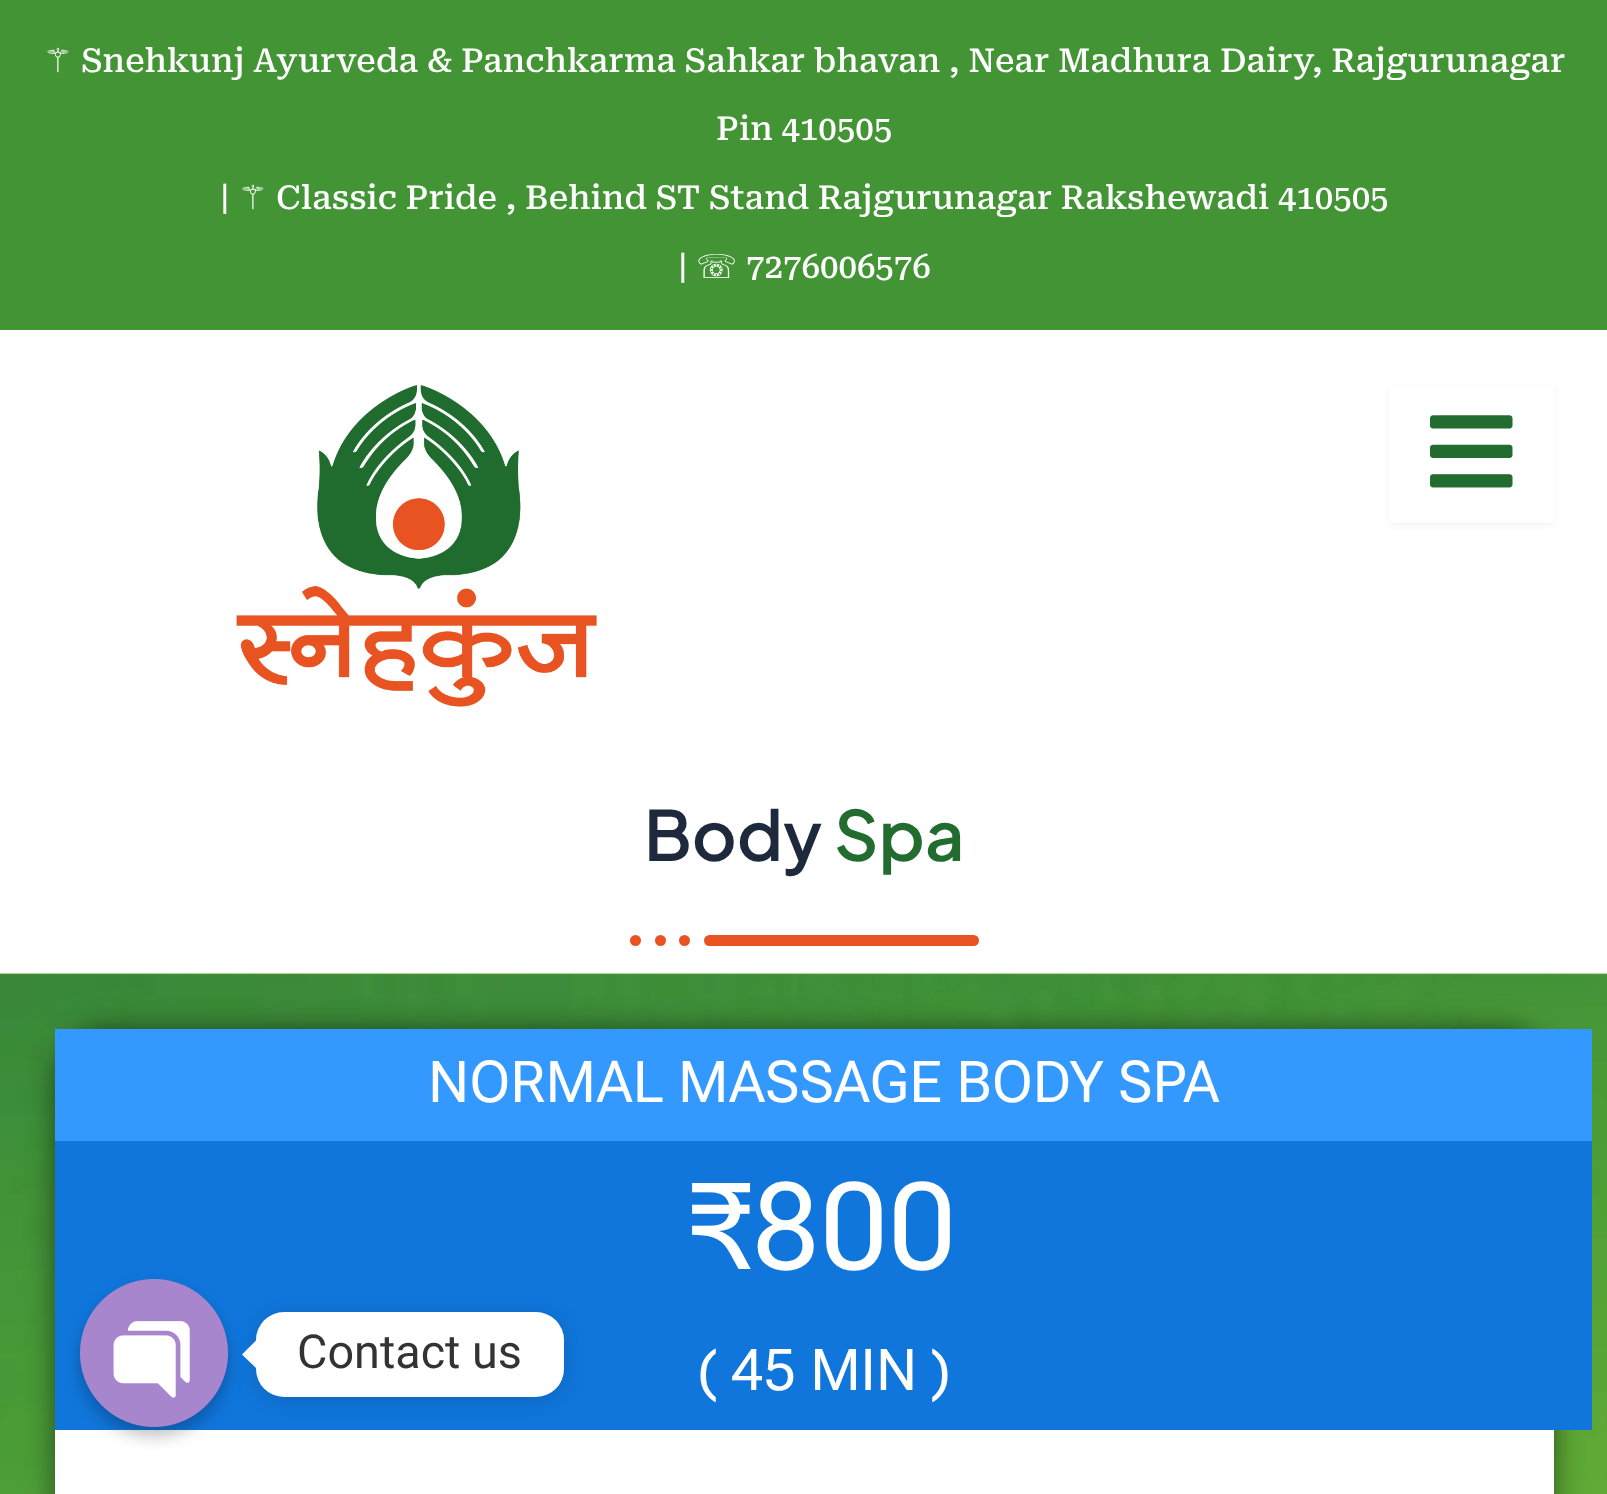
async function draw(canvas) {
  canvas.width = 1607
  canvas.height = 1494
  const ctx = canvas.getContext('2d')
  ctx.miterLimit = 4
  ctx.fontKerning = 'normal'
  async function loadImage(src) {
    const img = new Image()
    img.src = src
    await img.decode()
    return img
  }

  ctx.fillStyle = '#fff'
  ctx.fillRect(0, 0, 1607, 1494)
  ctx.fillStyle = '#439435'
  ctx.fillRect(0, 0, 1607, 330)
  ctx.font = '33px DejaVu Sans'
  ctx.fillStyle = '#fff'
  ctx.fillText('⚚', 43, 72)
  ctx.font = '500 33px Roboto Serif'
  ctx.fillText('Snehkunj Ayurveda & Panchkarma Sahkar bhavan , Near Madhura Dairy, Rajgurunagar', 81, 72)
  ctx.fillText('Pin 410505', 716, 140)
  ctx.fillText('|', 220, 209)
  ctx.font = '33px DejaVu Sans'
  ctx.fillText('⚚', 238, 209)
  ctx.font = '500 33px Roboto Serif'
  ctx.fillText('Classic Pride , Behind ST Stand Rajgurunagar Rakshewadi 410505', 276, 209)
  ctx.fillText('|', 678, 278)
  ctx.font = '33px DejaVu Sans'
  ctx.fillText('☏', 696, 278)
  ctx.font = '500 33px Roboto Serif'
  ctx.fillText('7276006576', 746, 278)
  ctx.drawImage(await loadImage('image0.png'), 236, 385, 361, 322)
  ctx.fillStyle = '#0000000d'
  ctx.filter = 'blur(3px)'
  ctx.beginPath()
  ctx.rect(1389, 388, 165, 137)
  ctx.fill()
  ctx.filter = 'none'
  ctx.fillStyle = '#fff'
  ctx.fillRect(1389, 385, 165, 138)
  ctx.drawImage(await loadImage('image1.png'), 1430, 415, 83, 73)
  ctx.font = '600 69px Plus Jakarta Sans'
  ctx.fillStyle = '#1e293b'
  ctx.fillText('Body', 644, 861)
  ctx.fillStyle = '#216c2e'
  ctx.fillText('Spa', 834, 861)
  ctx.fillStyle = '#e95323'
  ctx.beginPath()
  ctx.roundRect(704, 935, 275, 11, 5.5)
  ctx.fill()
  ctx.beginPath()
  ctx.arc(684.5, 940.5, 5.5, 0, 2 * Math.PI)
  ctx.fill()
  ctx.beginPath()
  ctx.arc(660.5, 940.5, 5.5, 0, 2 * Math.PI)
  ctx.fill()
  ctx.beginPath()
  ctx.arc(635.5, 940.5, 5.5, 0, 2 * Math.PI)
  ctx.fill()
  ctx.drawImage(await loadImage('image2.png'), 0, 973, 1607, 521)
  ctx.fillStyle = '#00000080'
  ctx.filter = 'blur(14px)'
  ctx.beginPath()
  ctx.roundRect(55, 1029, 1499, 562, 55)
  ctx.fill()
  ctx.filter = 'none'
  ctx.fillStyle = '#fff'
  ctx.fillRect(55, 1430, 1499, 64)
  ctx.fillStyle = '#39f'
  ctx.fillRect(55, 1029, 1537, 112)
  ctx.font = '57.75px Roboto Flex'
  ctx.fillStyle = '#fff'
  ctx.fillText('NORMAL MASSAGE BODY SPA', 428, 1102)
  ctx.fillStyle = '#1076dc'
  ctx.fillRect(55, 1141, 1537, 289)
  ctx.font = '121px Roboto Flex'
  ctx.fillStyle = '#fff'
  ctx.fillText('₹800', 691, 1269)
  ctx.font = '57.75px Roboto Flex'
  ctx.fillText('( 45 MIN )', 697, 1390)
  ctx.save()
  ctx.beginPath()
  ctx.moveTo(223, 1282)
  ctx.lineTo(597, 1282)
  ctx.lineTo(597, 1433)
  ctx.lineTo(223, 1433)
  ctx.closePath()
  ctx.moveTo(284, 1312)
  ctx.lineTo(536, 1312)
  ctx.bezierCurveTo(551.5, 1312, 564, 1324.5, 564, 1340)
  ctx.lineTo(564, 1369)
  ctx.bezierCurveTo(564, 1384.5, 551.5, 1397, 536, 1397)
  ctx.lineTo(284, 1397)
  ctx.bezierCurveTo(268.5, 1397, 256, 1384.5, 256, 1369)
  ctx.lineTo(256, 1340)
  ctx.bezierCurveTo(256, 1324.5, 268.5, 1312, 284, 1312)
  ctx.closePath()
  ctx.clip('evenodd')
  ctx.fillStyle = '#00000026'
  ctx.filter = 'blur(10.5px)'
  ctx.beginPath()
  ctx.roundRect(256, 1315, 308, 85, 28)
  ctx.fill()
  ctx.filter = 'none'
  ctx.restore()
  ctx.beginPath()
  ctx.moveTo(256, 1340.5)
  ctx.lineTo(256, 1368)
  ctx.lineTo(242, 1354.5)
  ctx.closePath()
  ctx.fill()
  ctx.fillStyle = '#00000040'
  ctx.filter = 'blur(8px)'
  ctx.beginPath()
  ctx.roundRect(80, 1287, 148, 149, 74)
  ctx.fill()
  ctx.filter = 'none'
  ctx.drawImage(await loadImage('image3.png'), 80, 1279, 148, 148)
  ctx.fillStyle = '#fff'
  ctx.beginPath()
  ctx.roundRect(256, 1312, 308, 85, 28)
  ctx.fill()
  ctx.font = '46.75px Roboto'
  ctx.fillStyle = '#333'
  ctx.fillText('Contact us', 297, 1368)
}

draw(document.querySelector('canvas'))
